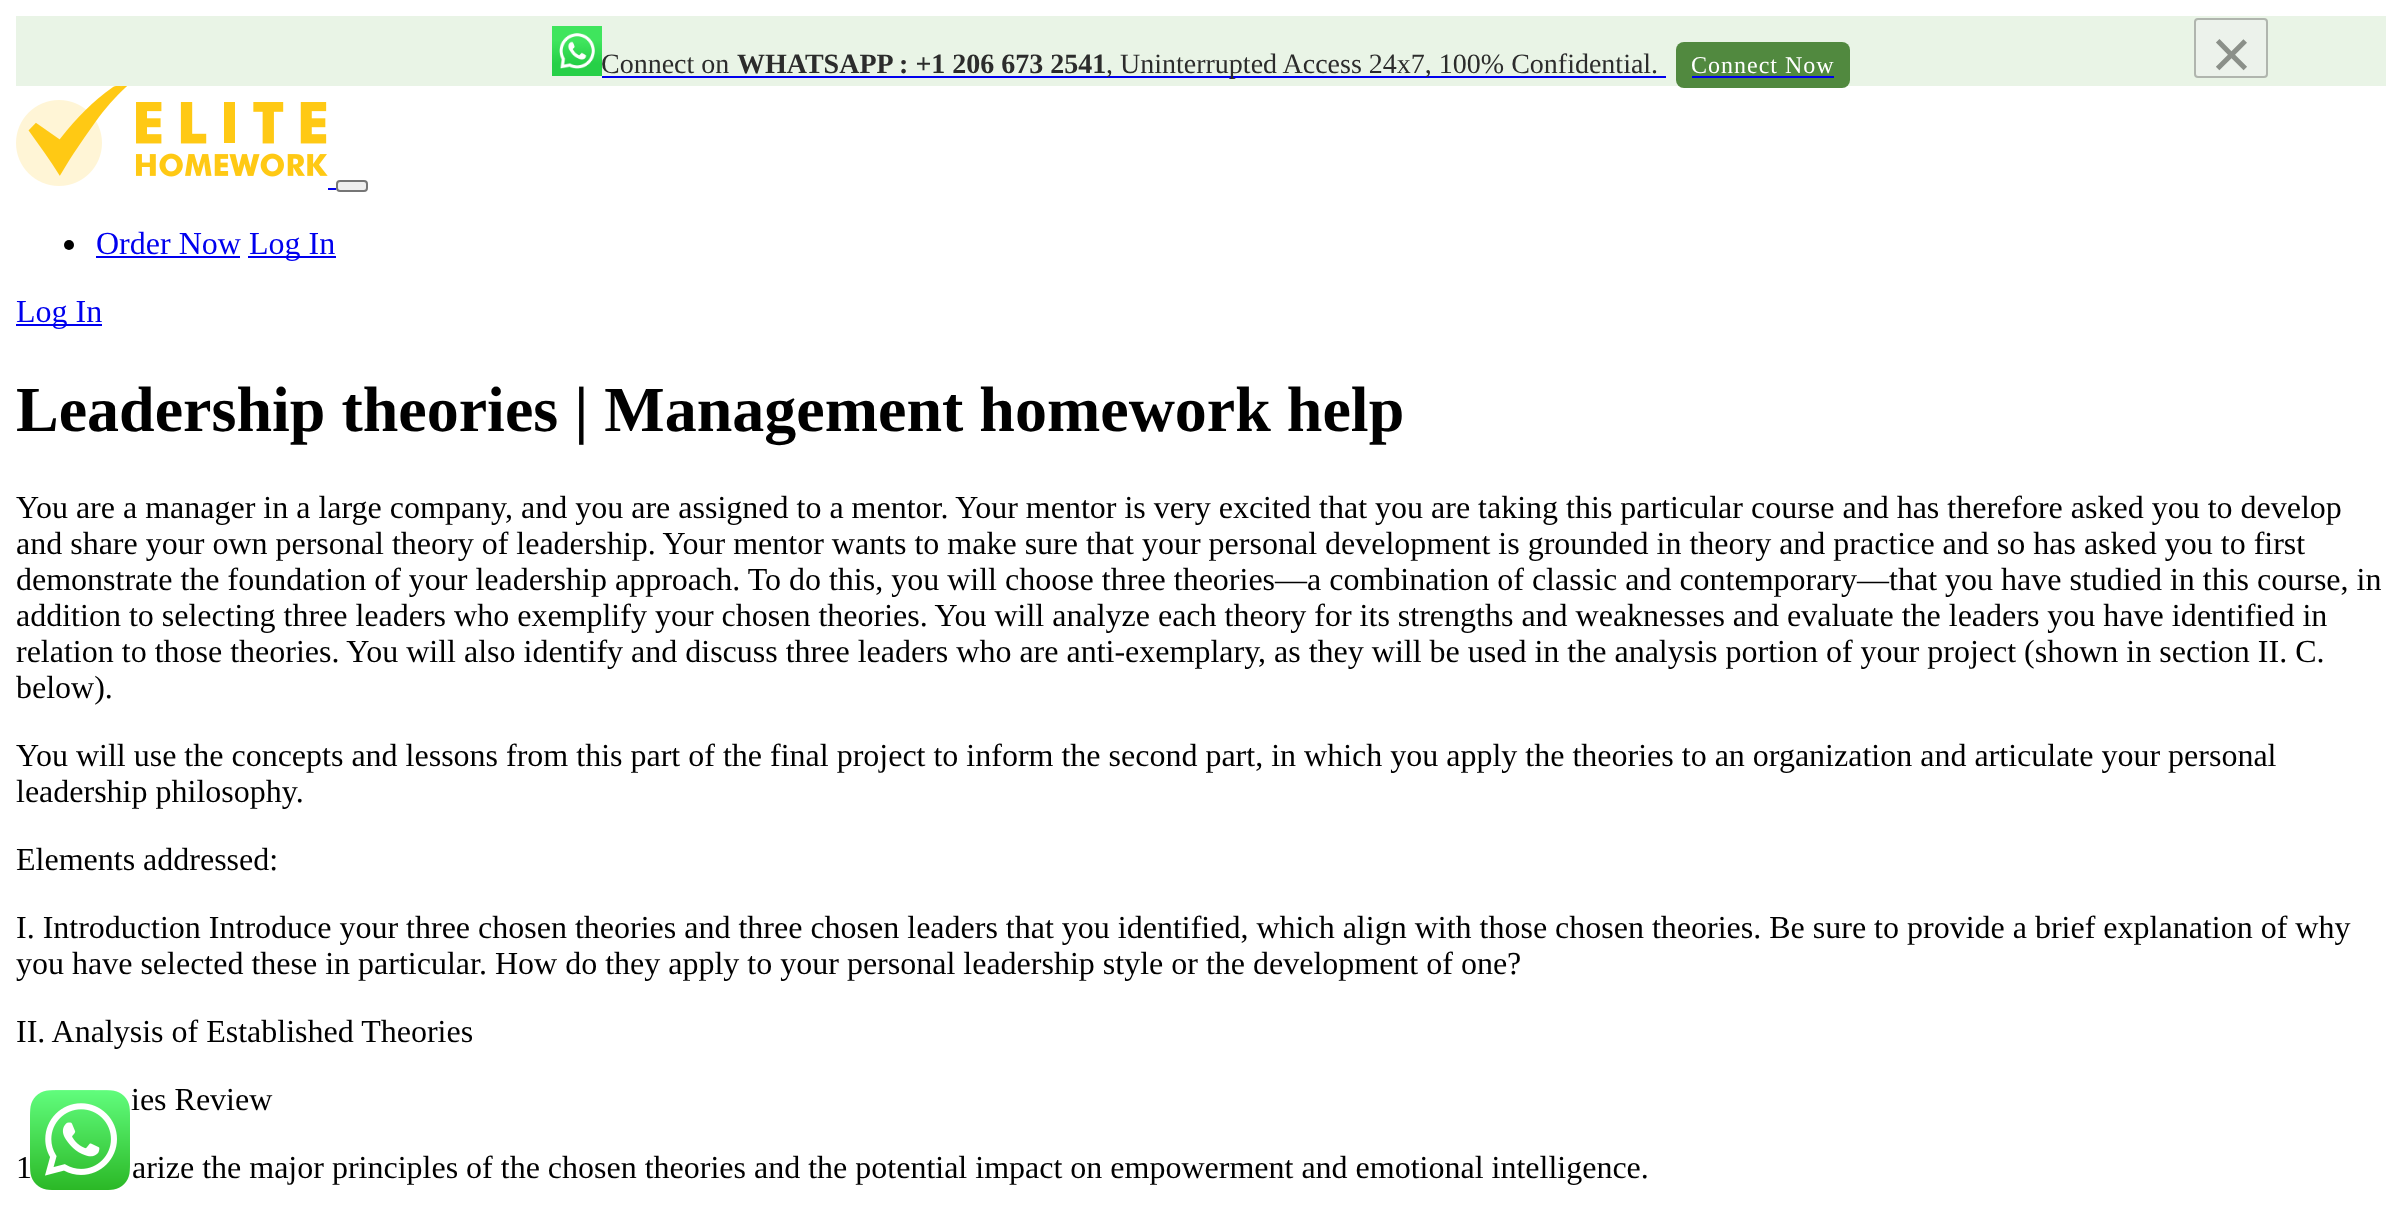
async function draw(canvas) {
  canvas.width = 2402
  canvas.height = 1220
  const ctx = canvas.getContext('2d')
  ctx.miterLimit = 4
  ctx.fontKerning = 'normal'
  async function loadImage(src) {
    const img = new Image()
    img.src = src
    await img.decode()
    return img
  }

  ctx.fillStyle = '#fff'
  ctx.fillRect(0, 0, 2402, 1220)
  ctx.fillStyle = '#e9f4e6'
  ctx.fillRect(16, 16, 2370, 70)
  ctx.drawImage(await loadImage('image0.png'), 552, 26, 50, 50)
  ctx.font = '28px Liberation Serif'
  ctx.fillStyle = '#2c2c2c'
  ctx.fillText('Connect on', 601, 73)
  ctx.font = 'bold 28px Liberation Serif'
  ctx.fillText('WHATSAPP : +1 206 673 2541', 737, 73)
  ctx.fillStyle = '#00e'
  ctx.fillRect(602, 76, 1064, 2)
  ctx.font = '28px Liberation Serif'
  ctx.fillStyle = '#2c2c2c'
  ctx.fillText(', Uninterrupted Access 24x7, 100% Confidential.', 1106, 73)
  ctx.fillStyle = '#51893f'
  ctx.beginPath()
  ctx.roundRect(1676, 42, 174, 46, 8)
  ctx.fill()
  ctx.letterSpacing = '1px'
  ctx.font = '24px Liberation Serif'
  ctx.fillStyle = '#fff'
  ctx.fillText('Connect Now', 1691, 73)
  ctx.fillStyle = '#00e'
  ctx.fillRect(1692, 76, 142, 2)
  ctx.fillStyle = '#ecf2eb'
  ctx.beginPath()
  ctx.roundRect(2195, 19, 72, 58, 3)
  ctx.fill()
  ctx.strokeStyle = '#b0b5ae'
  ctx.lineWidth = 2
  ctx.stroke()
  ctx.letterSpacing = '0px'
  ctx.font = '70px Liberation Sans'
  ctx.fillStyle = '#8b9089'
  ctx.fillText('×', 2211, 78)
  ctx.drawImage(await loadImage('image1.png'), 16, 86, 312, 100)
  ctx.fillStyle = '#00e'
  ctx.fillRect(328, 188, 8, 2)
  ctx.fillStyle = '#efefef'
  ctx.beginPath()
  ctx.roundRect(337, 181, 30, 10, 3)
  ctx.fill()
  ctx.strokeStyle = '#767676'
  ctx.stroke()
  ctx.fillStyle = '#000'
  ctx.beginPath()
  ctx.arc(69, 245, 5, 0, 2 * Math.PI)
  ctx.fill()
  ctx.font = '32px Liberation Serif'
  ctx.fillStyle = '#00e'
  ctx.fillText('Order Now', 96, 254)
  ctx.fillRect(96, 256, 144, 2)
  ctx.fillRect(248, 256, 88, 2)
  ctx.fillText('Log In', 249, 254)
  ctx.fillRect(16, 324, 86, 2)
  ctx.fillText('Log In', 16, 322)
  ctx.font = 'bold 64px Liberation Serif'
  ctx.fillStyle = '#000'
  ctx.fillText('Leadership theories | Management homework help', 16, 431)
  ctx.font = '32px Liberation Serif'
  ctx.fillText('You are a manager in a large company, and you are assigned to a mentor. Your mentor is very excited that you are taking this particular course and has therefore asked you to develop', 16, 518)
  ctx.fillText('and share your own personal theory of leadership. Your mentor wants to make sure that your personal development is grounded in theory and practice and so has asked you to first', 16, 554)
  ctx.fillText('demonstrate the foundation of your leadership approach. To do this, you will choose three theories—a combination of classic and contemporary—that you have studied in this course, in', 16, 590)
  ctx.fillText('addition to selecting three leaders who exemplify your chosen theories. You will analyze each theory for its strengths and weaknesses and evaluate the leaders you have identified in', 16, 626)
  ctx.fillText('relation to those theories. You will also identify and discuss three leaders who are anti-exemplary, as they will be used in the analysis portion of your project (shown in section II. C.', 16, 662)
  ctx.fillText('below).', 16, 698)
  ctx.fillText('You will use the concepts and lessons from this part of the final project to inform the second part, in which you apply the theories to an organization and articulate your personal', 16, 766)
  ctx.fillText('leadership philosophy.', 16, 802)
  ctx.fillText('Elements addressed:', 16, 870)
  ctx.fillText('I. Introduction Introduce your three chosen theories and three chosen leaders that you identified, which align with those chosen theories. Be sure to provide a brief explanation of why', 16, 938)
  ctx.fillText('you have selected these in particular. How do they apply to your personal leadership style or the development of one?', 16, 974)
  ctx.fillText('II. Analysis of Established Theories', 16, 1042)
  ctx.fillText('ies Review', 131, 1110)
  ctx.fillText('1', 16, 1178)
  ctx.fillText('arize the major principles of the chosen theories and the potential impact on empowerment and emotional intelligence.', 132, 1178)
  ctx.drawImage(await loadImage('image2.png'), 30, 1090, 100, 100)
}

draw(document.querySelector('canvas'))
